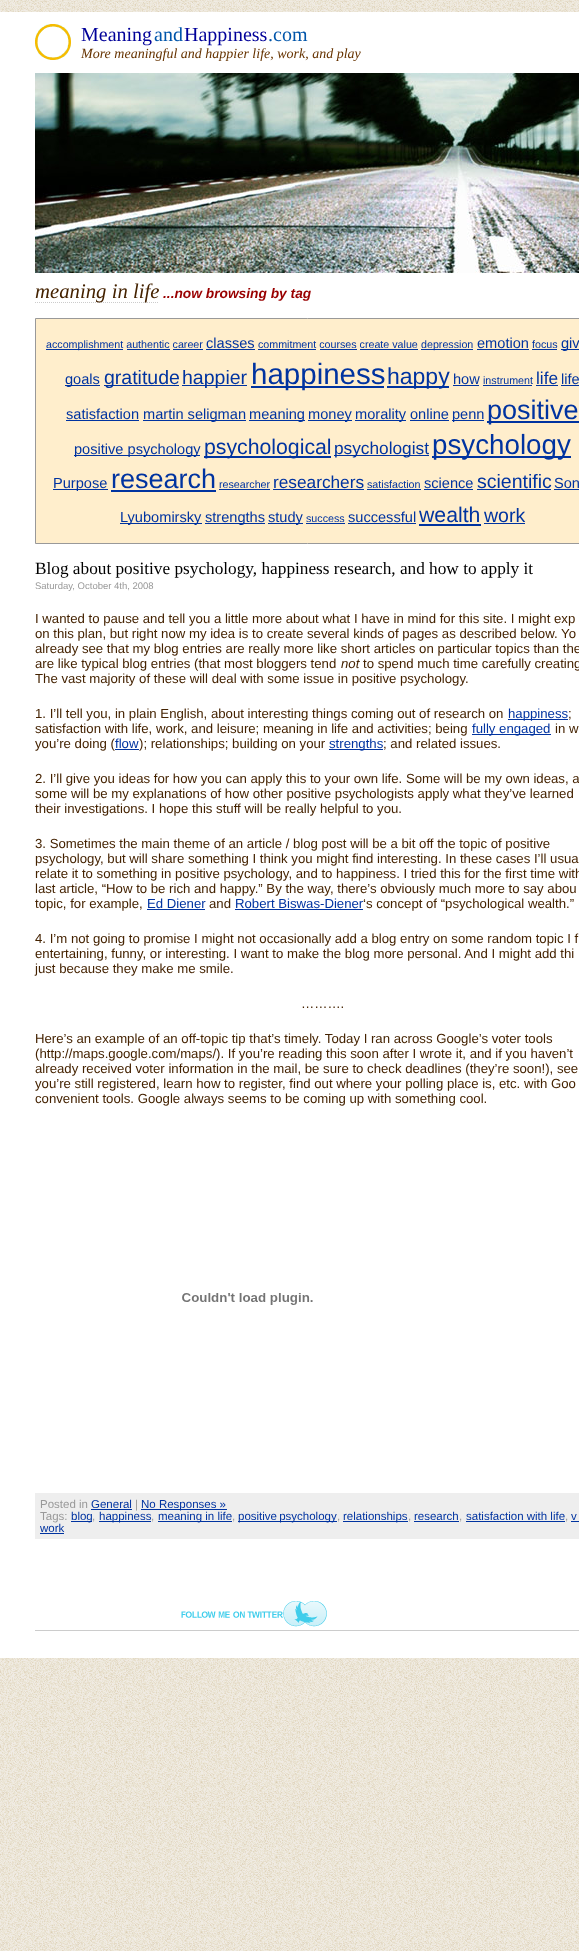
async function draw(canvas) {
  canvas.width = 579
  canvas.height = 1951
  const ctx = canvas.getContext('2d')
  ctx.miterLimit = 4
  ctx.fontKerning = 'normal'
  async function loadImage(src) {
    const img = new Image()
    img.src = src
    await img.decode()
    return img
  }

  ctx.fillStyle = '#fff'
  ctx.fillRect(0, 0, 579, 1951)
  ctx.drawImage(await loadImage('image0.png'), 0, 0, 579, 1951)
  ctx.fillRect(0, 12, 579, 1646)
  ctx.drawImage(await loadImage('image1.png'), 35, 24, 36, 36)
  ctx.font = '20px Liberation Serif'
  ctx.fillStyle = '#009'
  ctx.fillText('Meaning', 81, 41)
  ctx.fillStyle = '#05a'
  ctx.fillText('and', 154, 41)
  ctx.fillStyle = '#009'
  ctx.fillText('Happiness', 184, 41)
  ctx.fillStyle = '#05a'
  ctx.fillText('.com', 268, 41)
  ctx.font = 'italic 14px Liberation Serif'
  ctx.fillStyle = '#630'
  ctx.fillText('More meaningful and happier life, work, and play', 81, 58)
  ctx.drawImage(await loadImage('image2.png'), 35, 73, 544, 200)
  ctx.beginPath()
  ctx.moveTo(35, 302.5)
  ctx.lineTo(159, 302.5)
  ctx.strokeStyle = '#ccc'
  ctx.setLineDash([1, 1])
  ctx.stroke()
  ctx.font = 'italic 20.75px Liberation Serif'
  ctx.fillStyle = '#420'
  ctx.fillText('meaning in life', 35, 298)
  ctx.font = 'italic bold 13.75px Liberation Sans'
  ctx.fillStyle = '#900'
  ctx.fillText('...now browsing by tag', 163, 298)
  ctx.fillStyle = '#fec'
  ctx.beginPath()
  ctx.rect(35.5, 318.5, 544, 225)
  ctx.fill()
  ctx.strokeStyle = '#999'
  ctx.setLineDash([])
  ctx.stroke()
  ctx.fillStyle = '#0033a0'
  ctx.fillRect(46, 349, 77, 1)
  ctx.font = '10.7px Liberation Sans'
  ctx.fillText('accomplishment authentic career', 46, 348)
  ctx.font = '14.6px Liberation Sans'
  ctx.fillText('classes', 206, 348)
  ctx.fillRect(206, 349, 49, 1)
  ctx.font = '10.7px Liberation Sans'
  ctx.fillText('commitment courses create value', 258, 348)
  ctx.fillRect(258, 349, 58, 1)
  ctx.fillRect(421, 349, 52, 1)
  ctx.fillText('depression', 421, 348)
  ctx.font = '14.6px Liberation Sans'
  ctx.fillText('emotion', 477, 348)
  ctx.fillRect(477, 349, 52, 1)
  ctx.font = '10.7px Liberation Sans'
  ctx.fillText('focus', 532, 348)
  ctx.fillRect(532, 349, 25, 1)
  ctx.fillRect(561, 349, 18, 1)
  ctx.font = '14.6px Liberation Sans'
  ctx.fillText('giv', 561, 348)
  ctx.fillRect(127, 349, 43, 1)
  ctx.fillRect(173, 349, 30, 1)
  ctx.fillRect(320, 349, 37, 1)
  ctx.fillRect(360, 349, 58, 1)
  ctx.fillRect(65, 385, 35, 1)
  ctx.fillText('goals', 65, 384)
  ctx.fillRect(104, 385, 75, 1)
  ctx.font = '19.5px Liberation Sans'
  ctx.fillText('gratitude', 104, 384)
  ctx.fillRect(182, 385, 65, 1)
  ctx.fillText('happier', 182, 384)
  ctx.fillRect(251, 386, 133, 2)
  ctx.font = '29.5px Liberation Sans'
  ctx.fillText('happiness', 251, 384)
  ctx.fillRect(387, 386, 62, 2)
  ctx.font = '23px Liberation Sans'
  ctx.fillText('happy', 387, 384)
  ctx.font = '14.6px Liberation Sans'
  ctx.fillText('how', 453, 384)
  ctx.fillRect(453, 385, 26, 1)
  ctx.font = '10.7px Liberation Sans'
  ctx.fillText('instrument', 483, 384)
  ctx.fillRect(483, 385, 49, 1)
  ctx.font = '17.25px Liberation Sans'
  ctx.fillText('life', 536, 384)
  ctx.fillRect(536, 385, 22, 1)
  ctx.font = '14.6px Liberation Sans'
  ctx.fillText('life', 561, 384)
  ctx.fillRect(561, 385, 18, 1)
  ctx.fillText('satisfaction', 66, 419)
  ctx.fillRect(66, 420, 73, 1)
  ctx.fillRect(143, 420, 103, 1)
  ctx.fillText('martin seligman', 143, 419)
  ctx.fillRect(249, 420, 56, 1)
  ctx.fillText('meaning', 249, 419)
  ctx.fillRect(308, 420, 44, 1)
  ctx.fillText('money', 308, 419)
  ctx.fillRect(355, 420, 51, 1)
  ctx.fillText('morality', 355, 419)
  ctx.fillText('online', 410, 419)
  ctx.fillRect(410, 420, 39, 1)
  ctx.fillRect(452, 420, 32, 1)
  ctx.fillText('penn', 452, 419)
  ctx.fillRect(487, 421, 92, 2)
  ctx.font = '27px Liberation Sans'
  ctx.fillText('positive', 487, 419)
  ctx.fillRect(74, 455, 126, 1)
  ctx.font = '14.6px Liberation Sans'
  ctx.fillText('positive psychology', 74, 454)
  ctx.fillRect(204, 456, 127, 2)
  ctx.font = '21.25px Liberation Sans'
  ctx.fillText('psychological', 204, 454)
  ctx.fillRect(334, 455, 95, 1)
  ctx.font = '17.25px Liberation Sans'
  ctx.fillText('psychologist', 334, 454)
  ctx.fillRect(432, 456, 139, 2)
  ctx.font = '27.75px Liberation Sans'
  ctx.fillText('psychology', 432, 454)
  ctx.fillRect(53, 489, 55, 1)
  ctx.font = '14.6px Liberation Sans'
  ctx.fillText('Purpose', 53, 488)
  ctx.font = '27px Liberation Sans'
  ctx.fillText('research', 111, 488)
  ctx.fillRect(111, 490, 105, 2)
  ctx.font = '10.7px Liberation Sans'
  ctx.fillText('researcher', 219, 488)
  ctx.fillRect(219, 489, 51, 1)
  ctx.font = '17.25px Liberation Sans'
  ctx.fillText('researchers', 273, 488)
  ctx.fillRect(273, 489, 91, 1)
  ctx.font = '10.7px Liberation Sans'
  ctx.fillText('satisfaction', 367, 488)
  ctx.fillRect(367, 489, 54, 1)
  ctx.font = '14.6px Liberation Sans'
  ctx.fillText('science', 424, 488)
  ctx.fillRect(424, 489, 49, 1)
  ctx.font = '19.5px Liberation Sans'
  ctx.fillText('scientific', 477, 488)
  ctx.fillRect(477, 489, 74, 1)
  ctx.font = '14.6px Liberation Sans'
  ctx.fillText('Son', 554, 488)
  ctx.fillRect(554, 489, 25, 1)
  ctx.fillRect(120, 523, 82, 1)
  ctx.fillText('Lyubomirsky', 120, 522)
  ctx.fillRect(205, 523, 60, 1)
  ctx.fillText('strengths', 205, 522)
  ctx.fillRect(268, 523, 35, 1)
  ctx.fillText('study', 268, 522)
  ctx.font = '10.7px Liberation Sans'
  ctx.fillText('success', 306, 522)
  ctx.fillRect(306, 523, 39, 1)
  ctx.font = '14.6px Liberation Sans'
  ctx.fillText('successful', 348, 522)
  ctx.fillRect(348, 523, 68, 1)
  ctx.font = '21.25px Liberation Sans'
  ctx.fillText('wealth', 419, 522)
  ctx.fillRect(419, 524, 62, 2)
  ctx.font = '19.5px Liberation Sans'
  ctx.fillText('work', 484, 522)
  ctx.fillRect(484, 523, 41, 1)
  ctx.font = '17.25px Liberation Serif'
  ctx.fillStyle = '#000'
  ctx.fillText('Blog about positive psychology, happiness research, and how to apply it', 35, 574)
  ctx.font = '9.5px Liberation Sans'
  ctx.fillStyle = '#999'
  ctx.fillText('Saturday, October 4th, 2008', 35, 589)
  ctx.font = '13.2px Liberation Sans'
  ctx.fillStyle = '#420'
  ctx.fillText('I wanted to pause and tell you a little more about what I have in mind for this site. I might exp', 35, 623)
  ctx.fillText('on this plan, but right now my idea is to create several kinds of pages as described below. Yo', 35, 638)
  ctx.fillText('already see that my blog entries are really more like short articles on particular topics than the', 35, 653)
  ctx.fillText('are like typical blog entries (that most bloggers tend', 35, 668)
  ctx.font = 'italic 13.2px Liberation Sans'
  ctx.fillText('not', 341, 668)
  ctx.font = '13.2px Liberation Sans'
  ctx.fillText('to spend much time carefully creating', 363, 668)
  ctx.fillText('The vast majority of these will deal with some issue in positive psychology.', 35, 683)
  ctx.fillText('1. I’ll tell you, in plain English, about interesting things coming out of research on', 35, 718)
  ctx.fillStyle = '#0033a0'
  ctx.fillRect(508, 719, 60, 1)
  ctx.fillText('happiness', 508, 718)
  ctx.fillStyle = '#420'
  ctx.fillText(';', 568, 718)
  ctx.fillText('satisfaction with life, work, and leisure; meaning in life and activities; being', 35, 733)
  ctx.fillStyle = '#0033a0'
  ctx.fillRect(472, 734, 79, 1)
  ctx.fillText('fully engaged', 472, 733)
  ctx.fillStyle = '#420'
  ctx.fillText('in w', 555, 733)
  ctx.fillText('you’re doing (', 35, 748)
  ctx.fillStyle = '#0033a0'
  ctx.fillText('flow', 115, 748)
  ctx.fillRect(115, 749, 24, 1)
  ctx.fillStyle = '#420'
  ctx.fillText('); relationships; building on your', 139, 748)
  ctx.fillStyle = '#0033a0'
  ctx.fillRect(329, 749, 54, 1)
  ctx.fillText('strengths', 329, 748)
  ctx.fillStyle = '#420'
  ctx.fillText('; and related issues.', 383, 748)
  ctx.fillText('2. I’ll give you ideas for how you can apply this to your own life. Some will be my own ideas, a', 35, 783)
  ctx.fillText('some will be my explanations of how other positive psychologists apply what they’ve learned', 35, 798)
  ctx.fillText('their investigations. I hope this stuff will be really helpful to you.', 35, 813)
  ctx.fillText('3. Sometimes the main theme of an article / blog post will be a bit off the topic of positive', 35, 848)
  ctx.fillText('psychology, but will share something I think you might find interesting. In these cases I’ll usua', 35, 863)
  ctx.fillText('relate it to something in positive psychology, and to happiness. I tried this for the first time with', 35, 878)
  ctx.fillText('last article, “How to be rich and happy.” By the way, there’s obviously much more to say abou', 35, 893)
  ctx.fillText('topic, for example,', 35, 908)
  ctx.fillStyle = '#0033a0'
  ctx.fillText('Ed Diener', 147, 908)
  ctx.fillRect(147, 909, 58, 1)
  ctx.fillStyle = '#420'
  ctx.fillText('and', 209, 908)
  ctx.fillStyle = '#0033a0'
  ctx.fillText('Robert Biswas-Diener', 235, 908)
  ctx.fillRect(235, 909, 128, 1)
  ctx.fillStyle = '#420'
  ctx.fillText('‘s concept of “psychological wealth.”', 363, 908)
  ctx.fillText('4. I’m not going to promise I might not occasionally add a blog entry on some random topic I f', 35, 943)
  ctx.fillText('entertaining, funny, or interesting. I want to make the blog more personal. And I might add thi', 35, 958)
  ctx.fillText('just because they make me smile.', 35, 973)
  ctx.fillText('……….', 301, 1008)
  ctx.fillText('Here’s an example of an off-topic tip that’s timely. Today I ran across Google’s voter tools', 35, 1043)
  ctx.fillText('(http://maps.google.com/maps/). If you’re reading this soon after I wrote it, and if you haven’t', 35, 1058)
  ctx.fillText('already received voter information in the mail, be sure to check deadlines (they’re soon!), see', 35, 1073)
  ctx.fillText('you’re still registered, learn how to register, find out where your polling place is, etc. with Goo', 35, 1088)
  ctx.fillText('convenient tools. Google always seems to be coming up with something cool.', 35, 1103)
  ctx.drawImage(await loadImage('image3.png'), 182, 1293, 131, 12)
  ctx.fillStyle = '#eee'
  ctx.fillRect(35, 1493, 544, 46)
  ctx.font = '11.5px Liberation Sans'
  ctx.fillStyle = '#999'
  ctx.fillText('Posted in', 40, 1508)
  ctx.fillStyle = '#0033a0'
  ctx.fillText('General', 91, 1508)
  ctx.fillRect(91, 1509, 41, 1)
  ctx.fillStyle = '#999'
  ctx.fillText('|', 135, 1508)
  ctx.fillStyle = '#0033a0'
  ctx.fillRect(141, 1509, 86, 1)
  ctx.fillText('No Responses »', 141, 1508)
  ctx.fillStyle = '#999'
  ctx.fillText('Tags:', 40, 1520)
  ctx.fillStyle = '#0033a0'
  ctx.fillRect(71, 1521, 21, 1)
  ctx.fillText('blog', 71, 1520)
  ctx.fillStyle = '#999'
  ctx.fillText(',', 92, 1520)
  ctx.fillStyle = '#0033a0'
  ctx.fillRect(99, 1521, 52, 1)
  ctx.fillText('happiness', 99, 1520)
  ctx.fillStyle = '#999'
  ctx.fillText(',', 151, 1520)
  ctx.fillStyle = '#0033a0'
  ctx.fillRect(158, 1521, 74, 1)
  ctx.fillText('meaning in life', 158, 1520)
  ctx.fillStyle = '#999'
  ctx.fillText(',', 232, 1520)
  ctx.fillStyle = '#0033a0'
  ctx.fillRect(238, 1521, 99, 1)
  ctx.wordSpacing = '-1px'
  ctx.fillText('positive psychology', 238, 1520)
  ctx.wordSpacing = '0px'
  ctx.fillStyle = '#999'
  ctx.fillText(',', 337, 1520)
  ctx.fillStyle = '#0033a0'
  ctx.fillRect(343, 1521, 65, 1)
  ctx.fillText('relationships', 343, 1520)
  ctx.fillStyle = '#999'
  ctx.fillText(',', 408, 1520)
  ctx.fillStyle = '#0033a0'
  ctx.fillText('research', 414, 1520)
  ctx.fillRect(414, 1521, 45, 1)
  ctx.fillStyle = '#999'
  ctx.fillText(',', 459, 1520)
  ctx.fillStyle = '#0033a0'
  ctx.fillText('satisfaction with life', 466, 1520)
  ctx.fillRect(466, 1521, 99, 1)
  ctx.fillStyle = '#999'
  ctx.fillText(',', 565, 1520)
  ctx.fillStyle = '#0033a0'
  ctx.fillText('v', 571, 1520)
  ctx.fillRect(571, 1521, 8, 1)
  ctx.fillText('work', 40, 1532)
  ctx.fillRect(40, 1533, 24, 1)
  ctx.drawImage(await loadImage('image4.png'), 181, 1601, 146, 26)
  ctx.fillStyle = '#ccc'
  ctx.fillRect(35, 1630, 544, 1)
}

draw(document.querySelector('canvas'))
